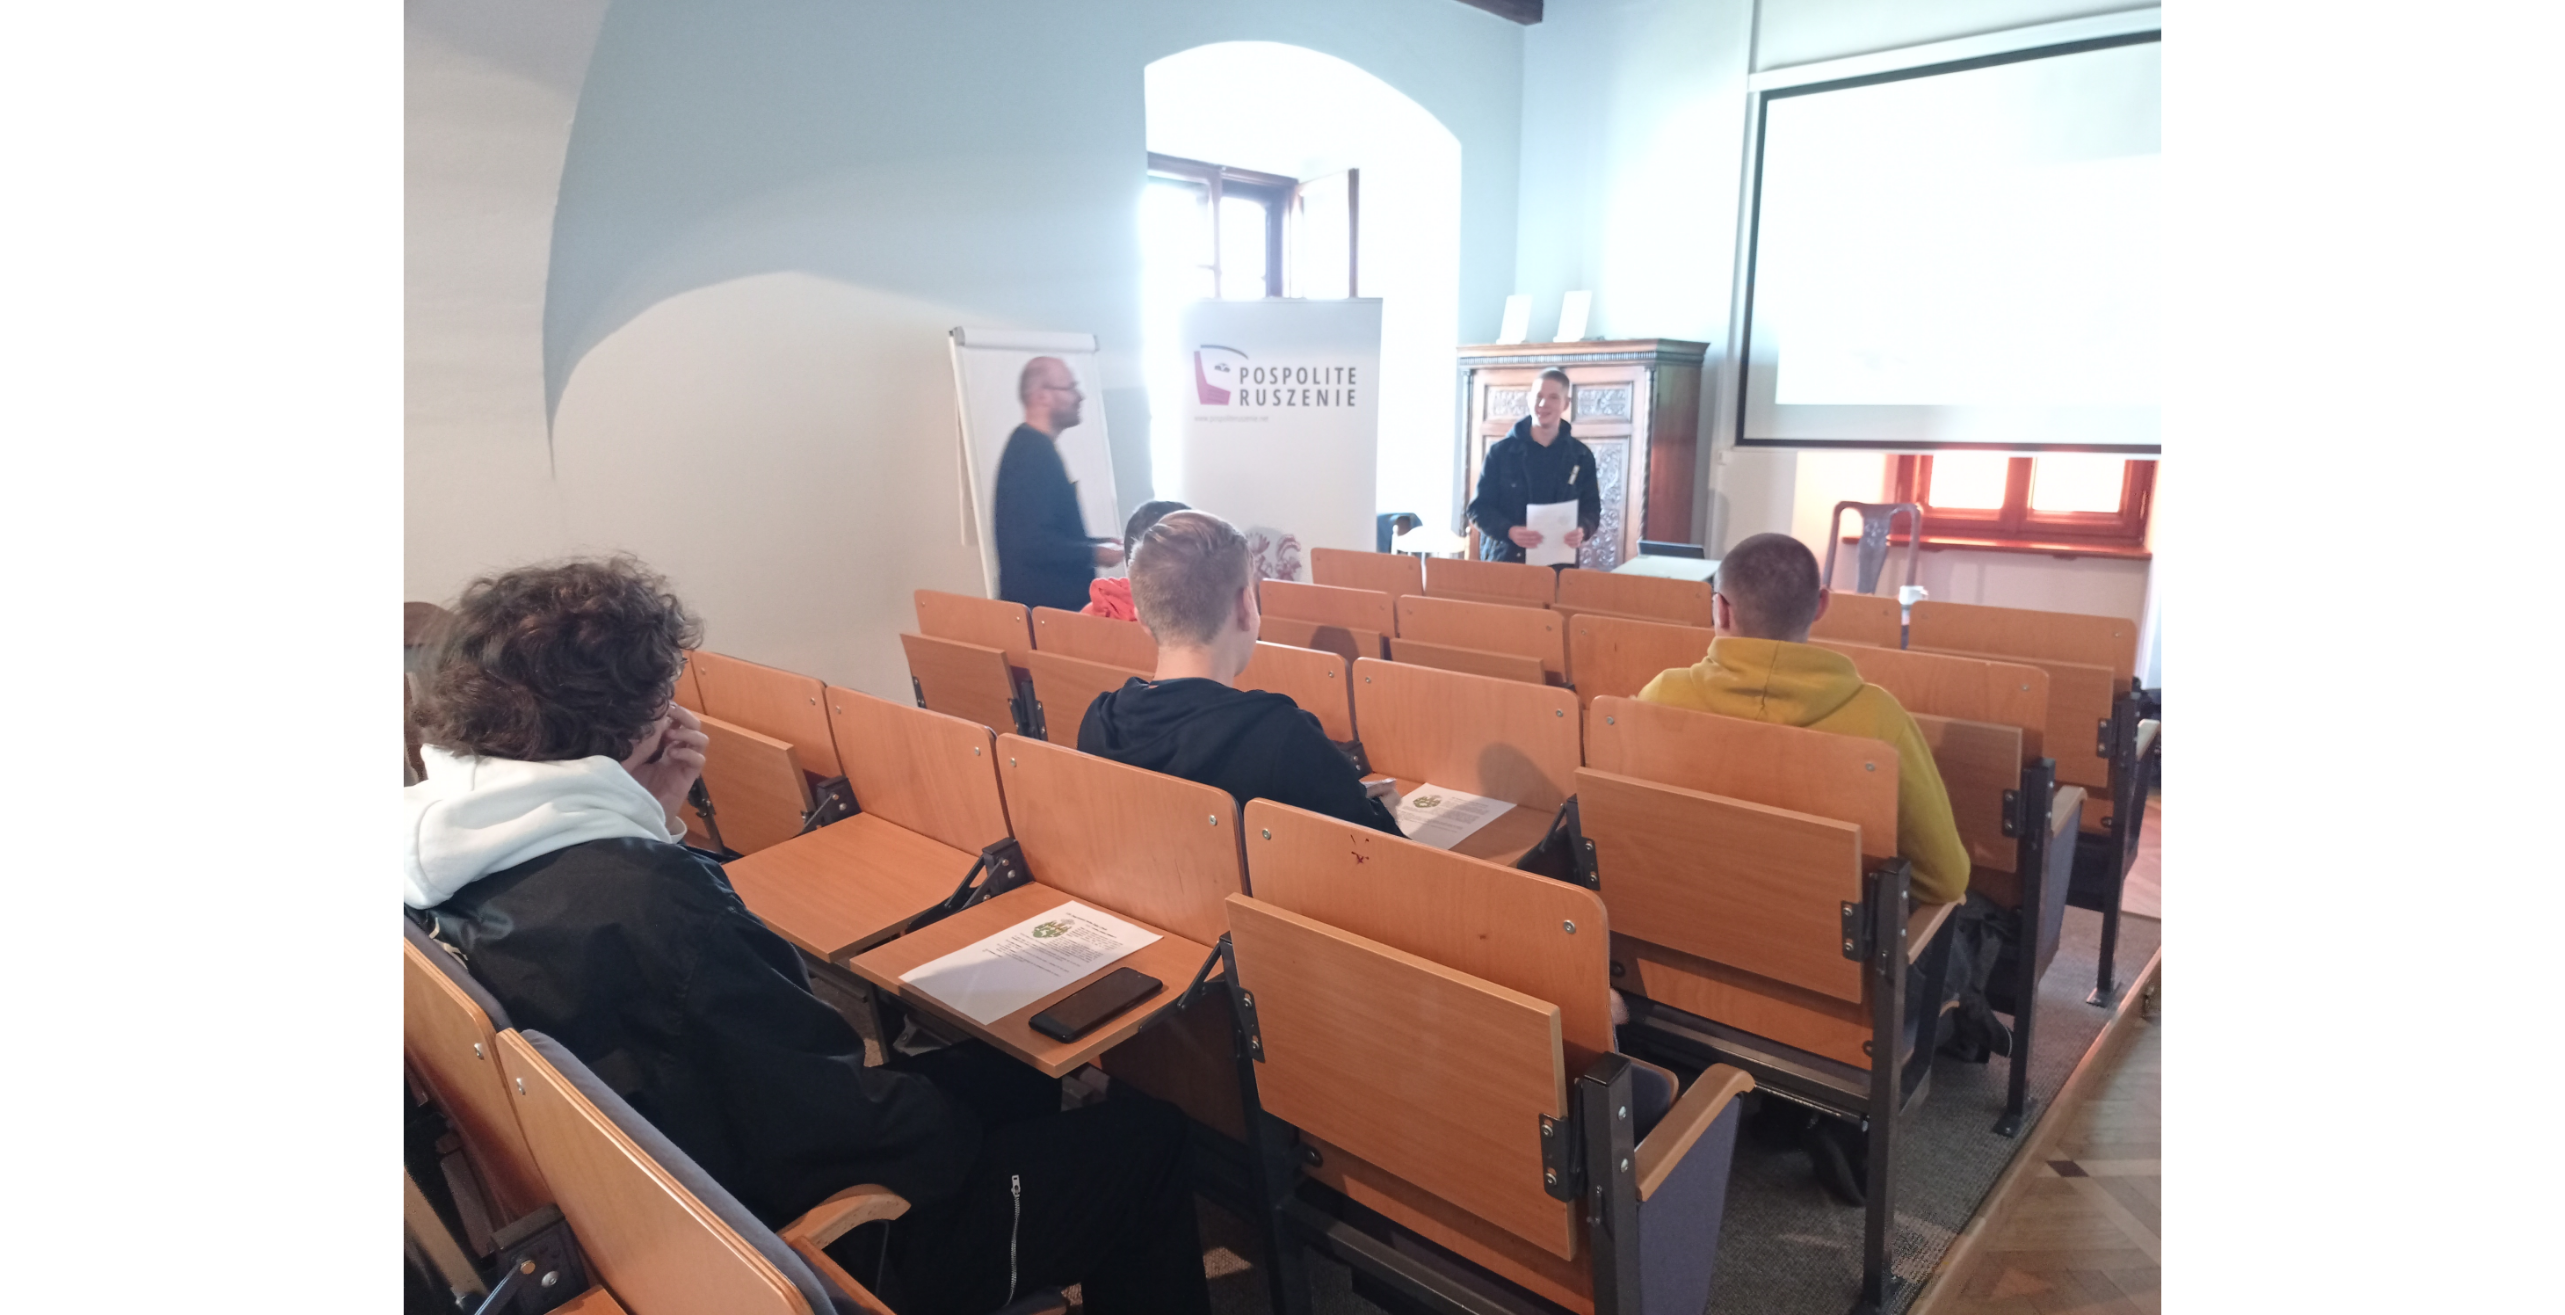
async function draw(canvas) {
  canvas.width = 2565
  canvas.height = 1315
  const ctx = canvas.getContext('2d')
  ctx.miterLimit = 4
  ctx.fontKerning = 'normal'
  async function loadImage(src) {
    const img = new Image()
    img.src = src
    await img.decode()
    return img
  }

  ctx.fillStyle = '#fff'
  ctx.fillRect(0, 0, 2565, 1315)
  ctx.drawImage(await loadImage('image0.png'), 403, 0, 1759, 1315)
}

draw(document.querySelector('canvas'))
